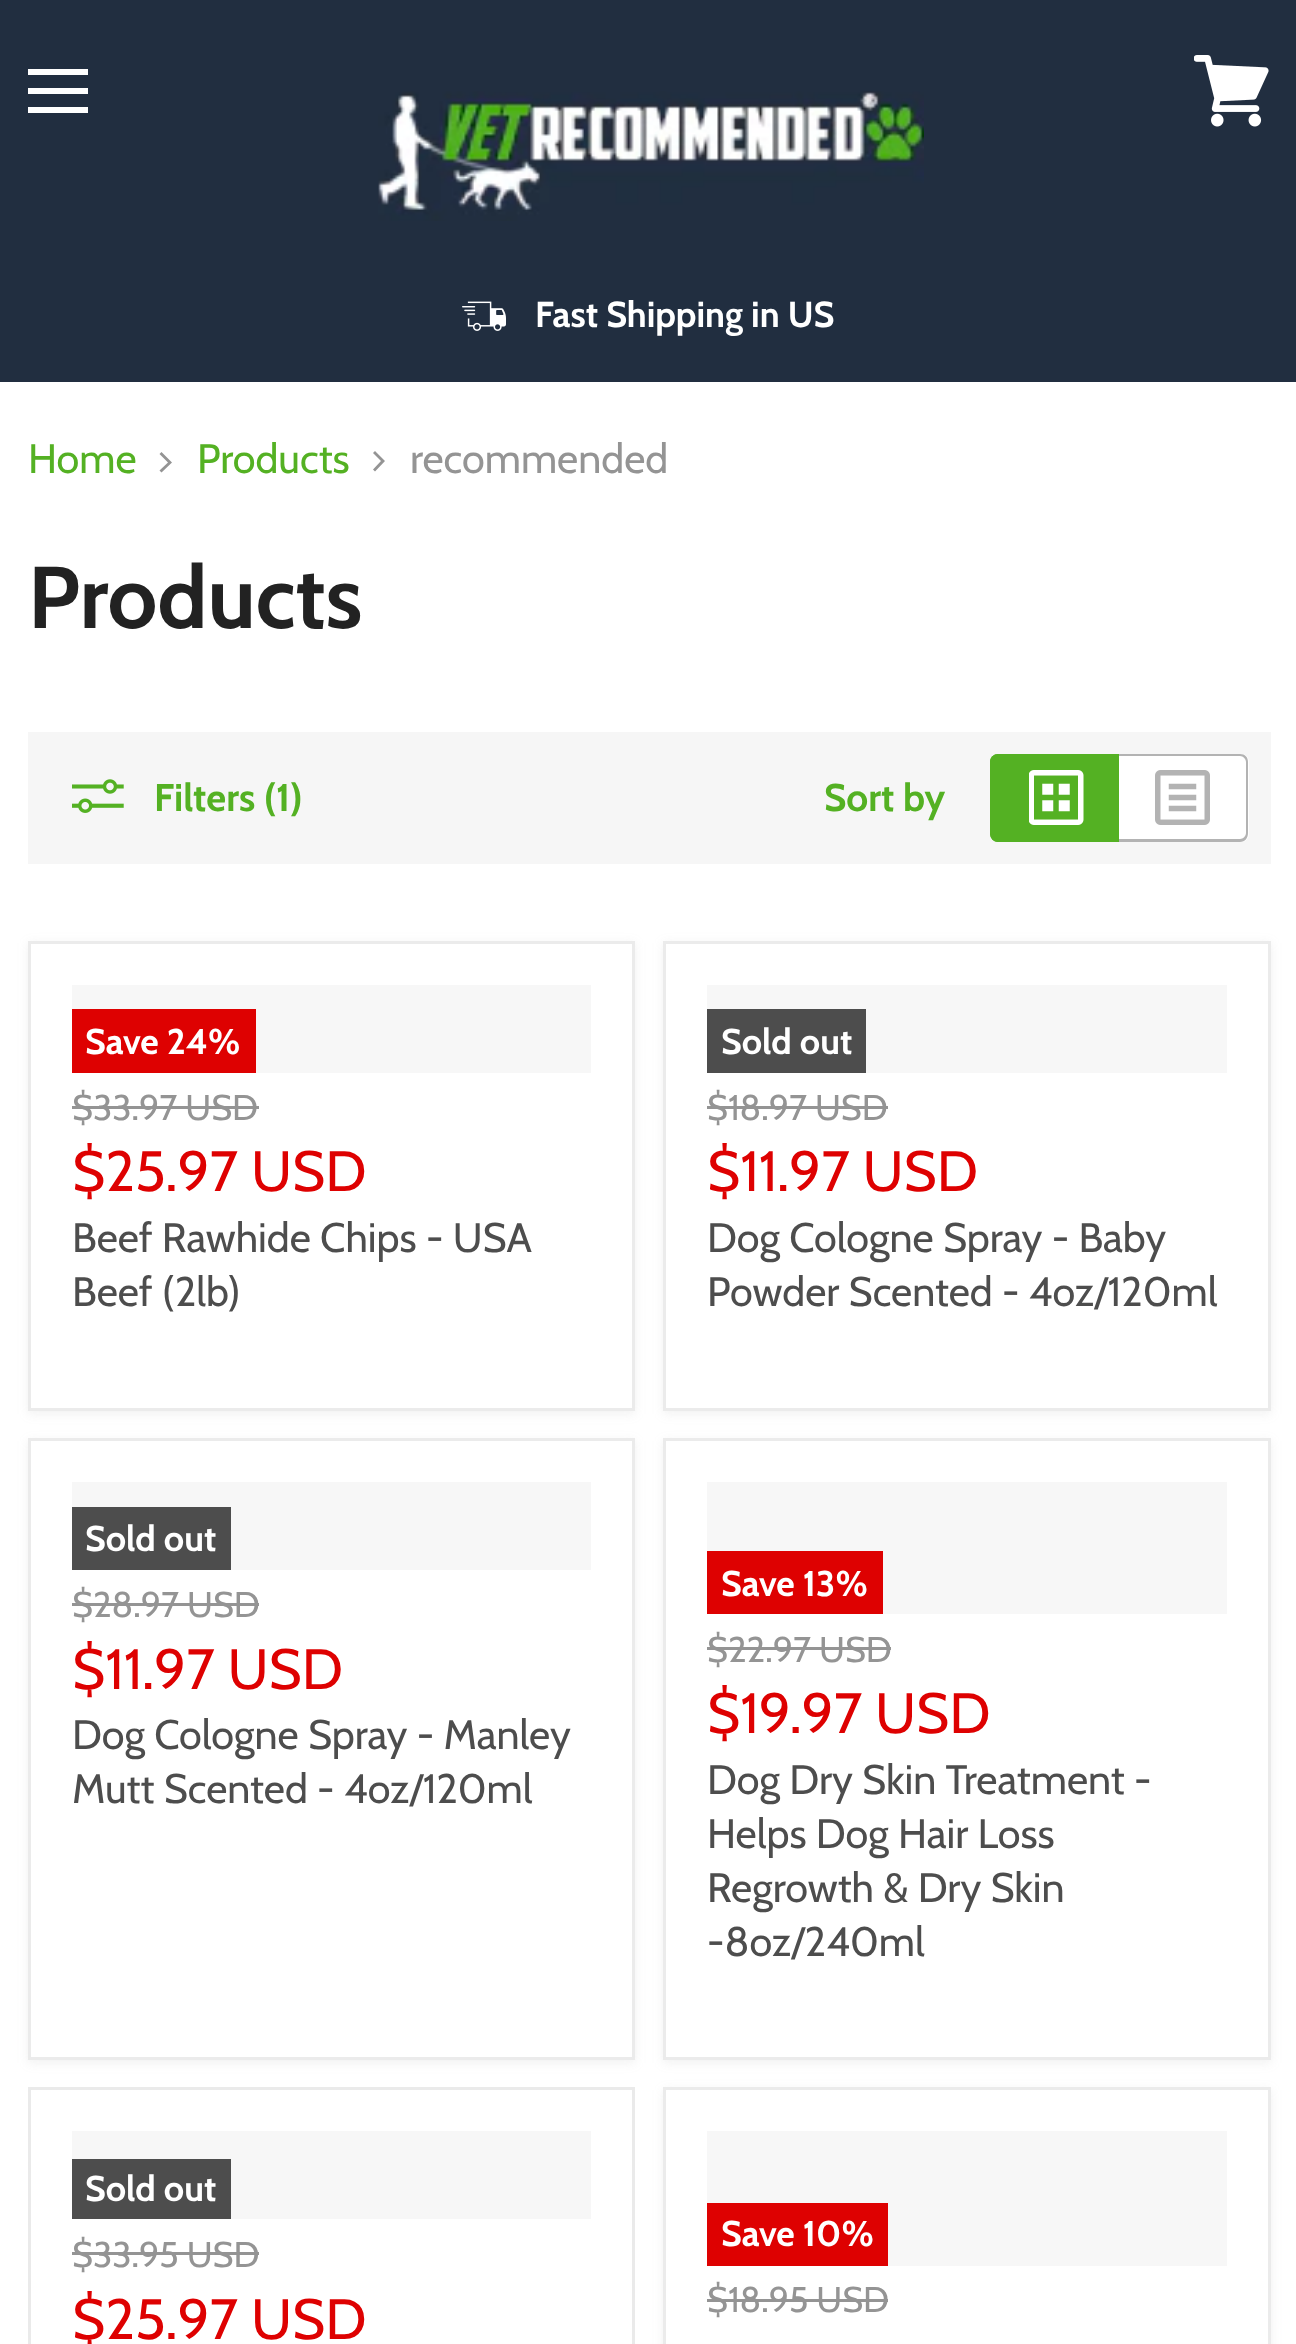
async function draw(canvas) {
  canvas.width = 1296
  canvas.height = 2344
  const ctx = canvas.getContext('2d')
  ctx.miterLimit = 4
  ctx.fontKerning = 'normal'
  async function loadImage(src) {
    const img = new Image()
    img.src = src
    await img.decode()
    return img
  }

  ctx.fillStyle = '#fff'
  ctx.fillRect(0, 0, 1296, 2344)
  ctx.fillStyle = '#212e40'
  ctx.fillRect(0, 0, 1296, 382)
  ctx.fillStyle = '#fff'
  ctx.fillRect(28, 69, 60, 6)
  ctx.fillRect(28, 88, 60, 6)
  ctx.fillRect(28, 107, 60, 6)
  ctx.drawImage(await loadImage('image0.png'), 1194, 55, 75, 72)
  ctx.drawImage(await loadImage('image1.png'), 378, 91, 546, 130)
  ctx.drawImage(await loadImage('image2.png'), 462, 301, 44, 30)
  ctx.font = 'bold 36px Cabin'
  ctx.fillText('Fast Shipping in US', 535, 327)
  ctx.font = '41.25px Cabin'
  ctx.fillStyle = '#54b123'
  ctx.fillText('Home', 28, 473)
  ctx.fillStyle = '#949494'
  ctx.beginPath()
  ctx.moveTo(159.5, 470.5)
  ctx.lineTo(161.5, 472.5)
  ctx.lineTo(172, 462.5)
  ctx.lineTo(161.5, 452)
  ctx.lineTo(159.5, 454)
  ctx.lineTo(168, 462.5)
  ctx.closePath()
  ctx.fill('evenodd')
  ctx.fillStyle = '#54b123'
  ctx.fillText('Products', 197, 473)
  ctx.fillStyle = '#949494'
  ctx.beginPath()
  ctx.moveTo(373, 469.5)
  ctx.lineTo(375, 471.5)
  ctx.lineTo(385, 461)
  ctx.lineTo(375, 451)
  ctx.lineTo(373, 453)
  ctx.lineTo(381, 461)
  ctx.closePath()
  ctx.fill('evenodd')
  ctx.fillText('recommended', 410, 473)
  ctx.font = 'bold 87.5px Cabin'
  ctx.fillStyle = '#222'
  ctx.fillText('Products', 28, 628)
  ctx.fillStyle = '#f6f6f6'
  ctx.fillRect(28, 732, 1243, 132)
  ctx.drawImage(await loadImage('image3.png'), 72, 779, 52, 34)
  ctx.font = 'bold 38.5px Cabin'
  ctx.fillStyle = '#54b123'
  ctx.fillText('Filters (1)', 154, 811)
  ctx.fillText('Sort by', 824, 811)
  ctx.beginPath()
  ctx.roundRect(990, 754, 129, 88, [8, 0, 0, 8])
  ctx.fill()
  ctx.beginPath()
  ctx.moveTo(998, 754)
  ctx.lineTo(1119, 754)
  ctx.lineTo(1119, 842)
  ctx.lineTo(998, 842)
  ctx.bezierCurveTo(994, 842, 990, 838, 990, 833)
  ctx.lineTo(990, 762)
  ctx.bezierCurveTo(990, 757, 994, 754, 998, 754)
  ctx.closePath()
  ctx.moveTo(998, 756)
  ctx.lineTo(1119, 756)
  ctx.lineTo(1119, 839)
  ctx.lineTo(998, 839)
  ctx.bezierCurveTo(995, 839, 993, 836, 993, 833)
  ctx.lineTo(993, 762)
  ctx.bezierCurveTo(993, 759, 995, 756, 998, 756)
  ctx.closePath()
  ctx.fill('evenodd')
  ctx.drawImage(await loadImage('image4.png'), 1029, 770, 55, 55)
  ctx.fillStyle = '#fff'
  ctx.beginPath()
  ctx.roundRect(1119, 754, 130, 88, [0, 8, 8, 0])
  ctx.fill()
  ctx.fillStyle = '#b3b3b3'
  ctx.beginPath()
  ctx.moveTo(1119, 754)
  ctx.lineTo(1240, 754)
  ctx.bezierCurveTo(1245, 754, 1248, 757, 1248, 762)
  ctx.lineTo(1248, 833)
  ctx.bezierCurveTo(1248, 838, 1245, 842, 1240, 842)
  ctx.lineTo(1119, 842)
  ctx.closePath()
  ctx.moveTo(1119, 756)
  ctx.lineTo(1240, 756)
  ctx.bezierCurveTo(1243, 756, 1246, 759, 1246, 762)
  ctx.lineTo(1246, 833)
  ctx.bezierCurveTo(1246, 836, 1243, 839, 1240, 839)
  ctx.lineTo(1119, 839)
  ctx.closePath()
  ctx.fill('evenodd')
  ctx.drawImage(await loadImage('image5.png'), 1155, 770, 55, 55)
  ctx.fillStyle = '#7f7f7f1c'
  ctx.filter = 'blur(5.5px)'
  ctx.beginPath()
  ctx.rect(28, 943, 607, 471)
  ctx.fill()
  ctx.filter = 'none'
  ctx.fillStyle = '#fff'
  ctx.beginPath()
  ctx.rect(29.5, 942.5, 604, 467)
  ctx.fill()
  ctx.strokeStyle = '#ebebeb'
  ctx.lineWidth = 3
  ctx.stroke()
  ctx.fillStyle = '#f7f7f7'
  ctx.fillRect(72, 985, 519, 88)
  ctx.fillStyle = '#de0101'
  ctx.fillRect(72, 1009, 184, 64)
  ctx.font = 'bold 35.75px Cabin'
  ctx.fillStyle = '#fff'
  ctx.fillText('Save 24%', 85, 1054)
  ctx.font = '35.75px Cabin'
  ctx.fillStyle = '#949494'
  ctx.fillText('$33.97 USD', 72, 1120)
  ctx.fillRect(72, 1106, 187, 3)
  ctx.font = '56.75px Cabin'
  ctx.fillStyle = '#de0101'
  ctx.fillText('$25.97 USD', 72, 1191)
  ctx.font = '41.25px Cabin'
  ctx.fillStyle = '#4d4d4d'
  ctx.fillText('Beef Rawhide Chips - USA', 72, 1252)
  ctx.fillText('Beef (2lb)', 72, 1306)
  ctx.fillStyle = '#7f7f7f1c'
  ctx.filter = 'blur(5.5px)'
  ctx.beginPath()
  ctx.rect(663, 943, 608, 471)
  ctx.fill()
  ctx.filter = 'none'
  ctx.fillStyle = '#fff'
  ctx.beginPath()
  ctx.rect(664.5, 942.5, 605, 467)
  ctx.fill()
  ctx.stroke()
  ctx.fillStyle = '#f7f7f7'
  ctx.fillRect(707, 985, 520, 88)
  ctx.fillStyle = '#4d4d4d'
  ctx.fillRect(707, 1009, 159, 64)
  ctx.font = 'bold 35.75px Cabin'
  ctx.fillStyle = '#fff'
  ctx.fillText('Sold out', 721, 1054)
  ctx.font = '35.75px Cabin'
  ctx.fillStyle = '#949494'
  ctx.fillText('$18.97 USD', 707, 1120)
  ctx.fillRect(707, 1106, 181, 3)
  ctx.font = '56.75px Cabin'
  ctx.fillStyle = '#de0101'
  ctx.fillText('$11.97 USD', 707, 1191)
  ctx.font = '41.25px Cabin'
  ctx.fillStyle = '#4d4d4d'
  ctx.fillText('Dog Cologne Spray - Baby', 707, 1252)
  ctx.fillText('Powder Scented - 4oz/120ml', 707, 1306)
  ctx.fillStyle = '#7f7f7f1c'
  ctx.filter = 'blur(5.5px)'
  ctx.beginPath()
  ctx.rect(28, 1441, 607, 622)
  ctx.fill()
  ctx.filter = 'none'
  ctx.fillStyle = '#fff'
  ctx.beginPath()
  ctx.rect(29.5, 1439.5, 604, 619)
  ctx.fill()
  ctx.stroke()
  ctx.fillStyle = '#f7f7f7'
  ctx.fillRect(72, 1482, 519, 88)
  ctx.fillStyle = '#4d4d4d'
  ctx.fillRect(72, 1507, 159, 63)
  ctx.font = 'bold 35.75px Cabin'
  ctx.fillStyle = '#fff'
  ctx.fillText('Sold out', 85, 1551)
  ctx.font = '35.75px Cabin'
  ctx.fillStyle = '#949494'
  ctx.fillText('$28.97 USD', 72, 1617)
  ctx.fillRect(72, 1603, 187, 3)
  ctx.font = '56.75px Cabin'
  ctx.fillStyle = '#de0101'
  ctx.fillText('$11.97 USD', 72, 1689)
  ctx.font = '41.25px Cabin'
  ctx.fillStyle = '#4d4d4d'
  ctx.fillText('Dog Cologne Spray - Manley', 72, 1749)
  ctx.fillText('Mutt Scented - 4oz/120ml', 72, 1803)
  ctx.fillStyle = '#7f7f7f1c'
  ctx.filter = 'blur(5.5px)'
  ctx.beginPath()
  ctx.rect(663, 1441, 608, 622)
  ctx.fill()
  ctx.filter = 'none'
  ctx.fillStyle = '#fff'
  ctx.beginPath()
  ctx.rect(664.5, 1439.5, 605, 619)
  ctx.fill()
  ctx.stroke()
  ctx.fillStyle = '#f7f7f7'
  ctx.fillRect(707, 1482, 520, 132)
  ctx.fillStyle = '#de0101'
  ctx.fillRect(707, 1551, 176, 63)
  ctx.font = 'bold 35.75px Cabin'
  ctx.fillStyle = '#fff'
  ctx.fillText('Save 13%', 721, 1596)
  ctx.font = '35.75px Cabin'
  ctx.fillStyle = '#949494'
  ctx.fillText('$22.97 USD', 707, 1662)
  ctx.fillRect(707, 1647, 184, 3)
  ctx.font = '56.75px Cabin'
  ctx.fillStyle = '#de0101'
  ctx.fillText('$19.97 USD', 707, 1733)
  ctx.font = '41.25px Cabin'
  ctx.fillStyle = '#4d4d4d'
  ctx.fillText('Dog Dry Skin Treatment -', 707, 1794)
  ctx.fillText('Helps Dog Hair Loss', 707, 1848)
  ctx.fillText('Regrowth & Dry Skin', 707, 1902)
  ctx.fillText('-8oz/240ml', 707, 1956)
  ctx.strokeStyle = '#eaeaea'
  ctx.strokeRect(29.5, 2088.5, 604, 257)
  ctx.fillStyle = '#f7f7f7'
  ctx.fillRect(72, 2131, 519, 88)
  ctx.fillStyle = '#4d4d4d'
  ctx.fillRect(72, 2159, 159, 60)
  ctx.font = 'bold 35.75px Cabin'
  ctx.fillStyle = '#fff'
  ctx.fillText('Sold out', 85, 2201)
  ctx.font = '35.75px Cabin'
  ctx.fillStyle = '#949494'
  ctx.fillText('$33.95 USD', 72, 2267)
  ctx.fillRect(72, 2252, 187, 3)
  ctx.font = '56.75px Cabin'
  ctx.fillStyle = '#de0101'
  ctx.fillText('$25.97 USD', 72, 2339)
  ctx.fillStyle = '#7f7f7f1c'
  ctx.filter = 'blur(5.5px)'
  ctx.beginPath()
  ctx.rect(663, 2090, 608, 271)
  ctx.fill()
  ctx.filter = 'none'
  ctx.fillStyle = '#fff'
  ctx.beginPath()
  ctx.rect(664.5, 2088.5, 605, 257)
  ctx.fill()
  ctx.strokeStyle = '#ebebeb'
  ctx.stroke()
  ctx.fillStyle = '#f7f7f7'
  ctx.fillRect(707, 2131, 520, 135)
  ctx.fillStyle = '#de0101'
  ctx.fillRect(707, 2203, 181, 63)
  ctx.font = 'bold 35.75px Cabin'
  ctx.fillStyle = '#fff'
  ctx.fillText('Save 10%', 721, 2246)
  ctx.font = '35.75px Cabin'
  ctx.fillStyle = '#949494'
  ctx.fillText('$18.95 USD', 707, 2312)
  ctx.fillRect(707, 2299, 181, 3)
}

draw(document.querySelector('canvas'))
